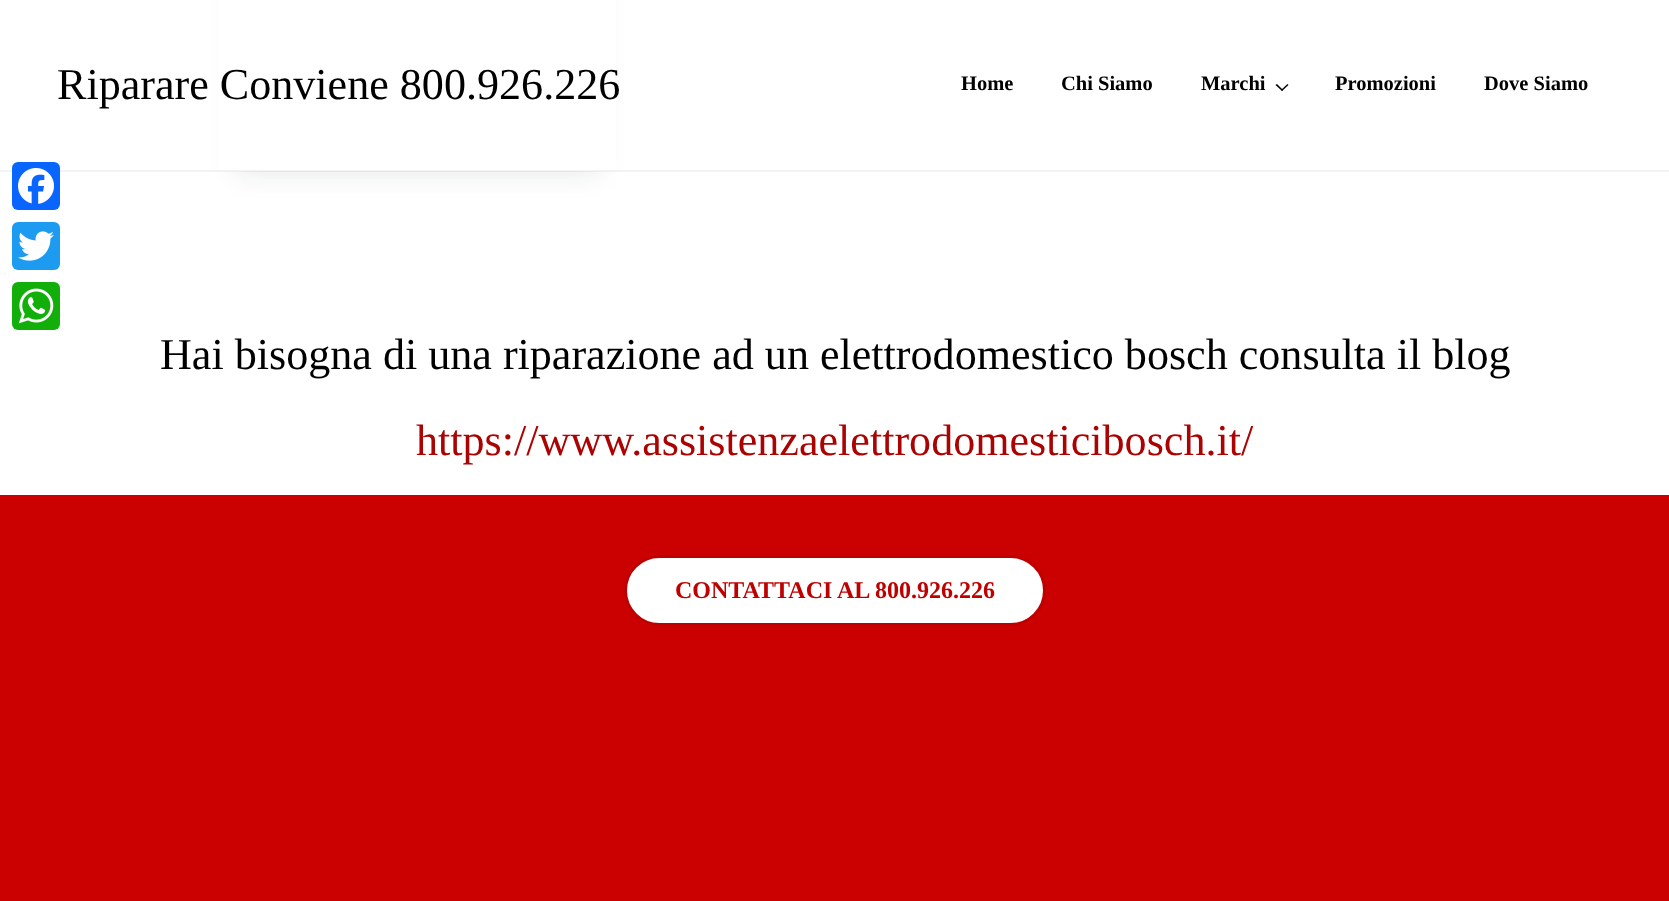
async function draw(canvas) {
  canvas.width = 1669
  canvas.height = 901
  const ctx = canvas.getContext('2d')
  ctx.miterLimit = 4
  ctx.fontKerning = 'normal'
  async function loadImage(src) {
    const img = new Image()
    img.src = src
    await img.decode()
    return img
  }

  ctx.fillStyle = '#fff'
  ctx.fillRect(0, 0, 1669, 901)
  ctx.fillStyle = '#0a141e1a'
  ctx.filter = 'blur(13.5px)'
  ctx.beginPath()
  ctx.roundRect(236, -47, 363, 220, 6)
  ctx.fill()
  ctx.filter = 'none'
  ctx.fillStyle = '#fff'
  ctx.fillRect(219, 0, 397, 171)
  ctx.fillStyle = '#0a141e0d'
  ctx.fillRect(0, 170, 1669, 2)
  ctx.fillStyle = '#0866ff'
  ctx.beginPath()
  ctx.roundRect(12, 162, 48, 48, 6)
  ctx.fill()
  ctx.drawImage(await loadImage('image0.png'), 18, 168, 36, 36)
  ctx.fillStyle = '#1d9bf0'
  ctx.beginPath()
  ctx.roundRect(12, 222, 48, 48, 6)
  ctx.fill()
  ctx.drawImage(await loadImage('image1.png'), 18, 231, 36, 30)
  ctx.fillStyle = '#12af0a'
  ctx.beginPath()
  ctx.roundRect(12, 282, 48, 48, 6)
  ctx.fill()
  ctx.drawImage(await loadImage('image2.png'), 18, 288, 36, 36)
  ctx.font = '44.1px Liberation Serif'
  ctx.fillStyle = '#000'
  ctx.fillText('Riparare Conviene 800.926.226', 57, 99)
  ctx.font = 'bold 20.5px Liberation Serif'
  ctx.fillText('Home', 961, 90)
  ctx.fillText('Chi Siamo', 1061, 90)
  ctx.fillText('Marchi', 1201, 90)
  ctx.beginPath()
  ctx.moveTo(1287.5, 84)
  ctx.lineTo(1288.5, 85)
  ctx.lineTo(1282, 91)
  ctx.lineTo(1281, 90)
  ctx.closePath()
  ctx.fill()
  ctx.beginPath()
  ctx.moveTo(1277, 84)
  ctx.lineTo(1283, 90)
  ctx.lineTo(1282, 91)
  ctx.lineTo(1275.5, 85)
  ctx.closePath()
  ctx.fill()
  ctx.fillText('Promozioni', 1335, 90)
  ctx.fillText('Dove Siamo', 1484, 90)
  ctx.font = '44.1px Liberation Serif'
  ctx.fillText('Hai bisogna di una riparazione ad un elettrodomestico bosch consulta il blog', 160, 369)
  ctx.fillStyle = '#ab0202'
  ctx.fillText('https://www.assistenzaelettrodomesticibosch.it/', 416, 455)
  ctx.fillStyle = '#cb0000'
  ctx.fillRect(0, 495, 1669, 406)
  ctx.fillStyle = '#fff'
  ctx.beginPath()
  ctx.roundRect(625.5, 556.5, 419, 68, 34)
  ctx.fill()
  ctx.strokeStyle = '#bf0000'
  ctx.lineWidth = 3
  ctx.stroke()
  ctx.font = 'bold 24px Liberation Serif'
  ctx.fillStyle = '#bf0000'
  ctx.fillText('CONTATTACI AL 800.926.226', 675, 598)
}

draw(document.querySelector('canvas'))
